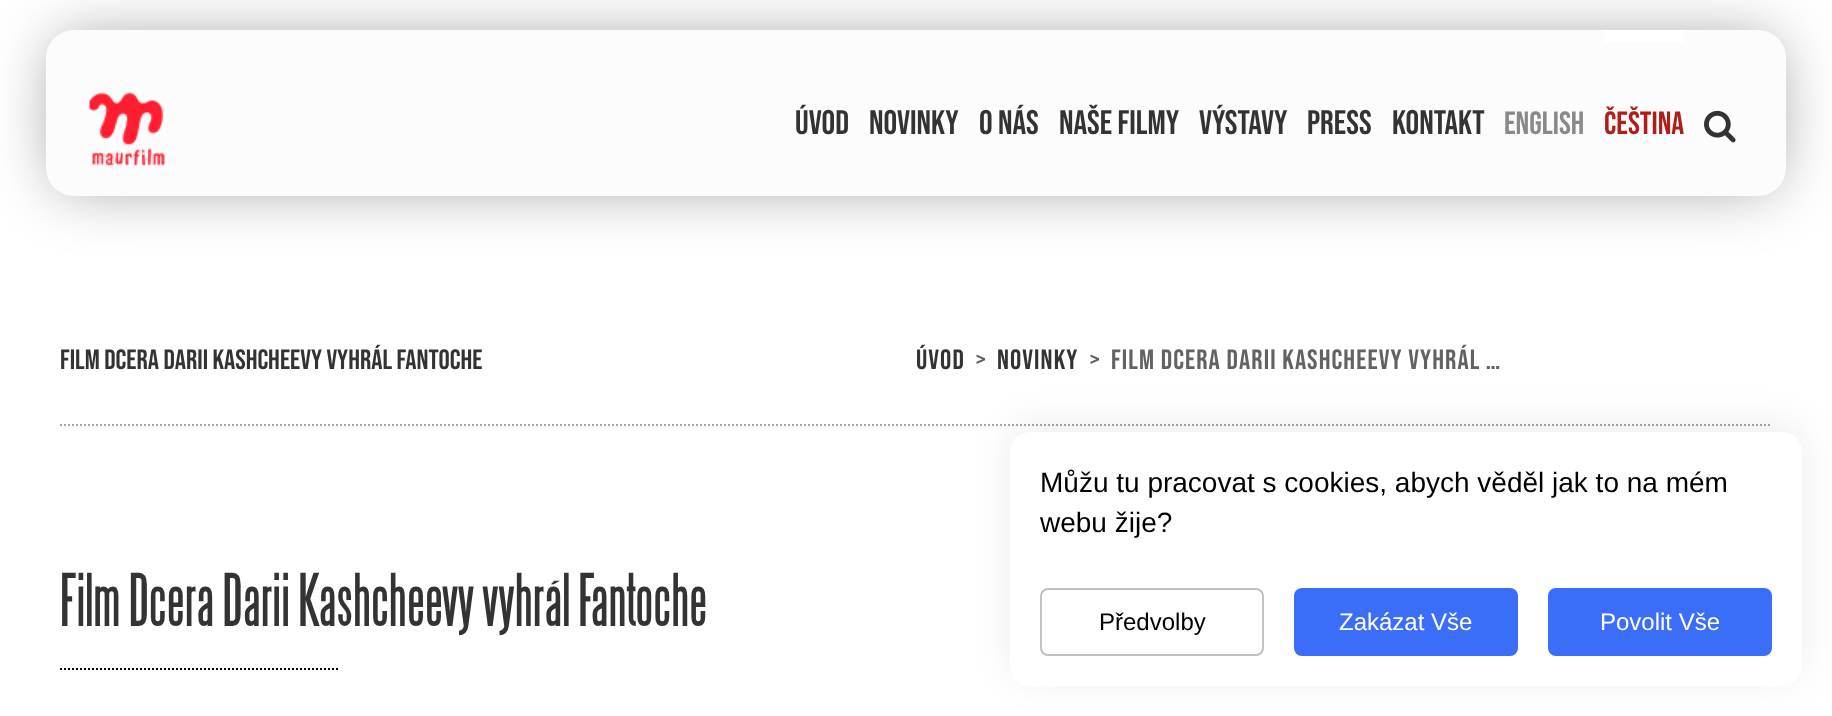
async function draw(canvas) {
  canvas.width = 1832
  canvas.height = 716
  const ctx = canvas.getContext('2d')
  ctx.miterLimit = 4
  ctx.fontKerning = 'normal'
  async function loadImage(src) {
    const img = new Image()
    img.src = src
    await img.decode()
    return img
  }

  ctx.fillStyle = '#fff'
  ctx.fillRect(0, 0, 1832, 716)
  ctx.fillStyle = '#00000066'
  ctx.filter = 'blur(31px)'
  ctx.beginPath()
  ctx.roundRect(56, 40, 1720, 146, 18)
  ctx.fill()
  ctx.filter = 'none'
  ctx.fillStyle = '#fcfcfc'
  ctx.beginPath()
  ctx.roundRect(46, 30, 1740, 166, 28)
  ctx.fill()
  ctx.drawImage(await loadImage('image0.png'), 89, 92, 76, 74)
  ctx.font = '34px Bebas Neue'
  ctx.fillStyle = '#333'
  ctx.fillText('ÚVOD', 795, 134)
  ctx.fillText('NOVINKY', 869, 134)
  ctx.fillText('O NÁS', 979, 134)
  ctx.fillText('NAŠE FILMY', 1059, 134)
  ctx.fillText('VÝSTAVY', 1199, 134)
  ctx.fillText('PRESS', 1307, 134)
  ctx.fillText('KONTAKT', 1392, 134)
  ctx.font = '32px Bebas Neue'
  ctx.fillStyle = '#898989'
  ctx.fillText('English', 1504, 134)
  ctx.fillStyle = '#fff'
  ctx.fillRect(1604, 30, 80, 12)
  ctx.fillStyle = '#af1f1a'
  ctx.fillText('Čeština', 1604, 134)
  ctx.drawImage(await loadImage('image1.png'), 1704, 110, 32, 33)
  ctx.beginPath()
  ctx.moveTo(60, 425)
  ctx.lineTo(1772, 425)
  ctx.strokeStyle = '#a7a7a7'
  ctx.lineWidth = 2
  ctx.setLineDash([2, 2])
  ctx.stroke()
  ctx.font = '28px Bebas Neue'
  ctx.fillStyle = '#333'
  ctx.fillText('Film Dcera Darii Kashcheevy vyhrál Fantoche', 60, 369)
  ctx.letterSpacing = '1.1px'
  ctx.fillText('Úvod', 916, 369)
  ctx.fillStyle = '#626262'
  ctx.fillText('>', 975, 369)
  ctx.fillStyle = '#333'
  ctx.fillText('novinky', 997, 369)
  ctx.fillStyle = '#626262'
  ctx.fillText('>', 1089, 369)
  ctx.fillText('Film Dcera Darii Kashcheevy vyhrál …', 1111, 369)
  ctx.letterSpacing = '0px'
  ctx.font = '60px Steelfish'
  ctx.fillStyle = '#333'
  ctx.fillText('Film Dcera Darii Kashcheevy vyhrál Fantoche', 60, 626)
  ctx.beginPath()
  ctx.moveTo(60, 669)
  ctx.lineTo(340, 669)
  ctx.strokeStyle = '#000'
  ctx.stroke()
  ctx.fillStyle = '#00000012'
  ctx.filter = 'blur(19px)'
  ctx.beginPath()
  ctx.roundRect(1010, 424, 792, 254, 20)
  ctx.fill()
  ctx.filter = 'none'
  ctx.fillStyle = '#fff'
  ctx.beginPath()
  ctx.roundRect(1010, 432, 792, 254, 20)
  ctx.fill()
  ctx.font = '28px Liberation Sans'
  ctx.fillStyle = '#000'
  ctx.fillText('Můžu tu pracovat s cookies, abych věděl jak to na mém', 1040, 492)
  ctx.fillText('webu žije?', 1040, 532)
  ctx.beginPath()
  ctx.roundRect(1041, 589, 222, 66, 7)
  ctx.strokeStyle = '#c1c1c1'
  ctx.setLineDash([])
  ctx.stroke()
  ctx.font = '24px Liberation Sans'
  ctx.fillText('Předvolby', 1099, 630)
  ctx.fillStyle = '#3b6ef8'
  ctx.beginPath()
  ctx.roundRect(1294, 588, 224, 68, 8)
  ctx.fill()
  ctx.fillStyle = '#fff'
  ctx.fillText('Zakázat Vše', 1339, 630)
  ctx.fillStyle = '#3b6ef8'
  ctx.beginPath()
  ctx.roundRect(1548, 588, 224, 68, 8)
  ctx.fill()
  ctx.fillStyle = '#fff'
  ctx.fillText('Povolit Vše', 1600, 630)
}

draw(document.querySelector('canvas'))
